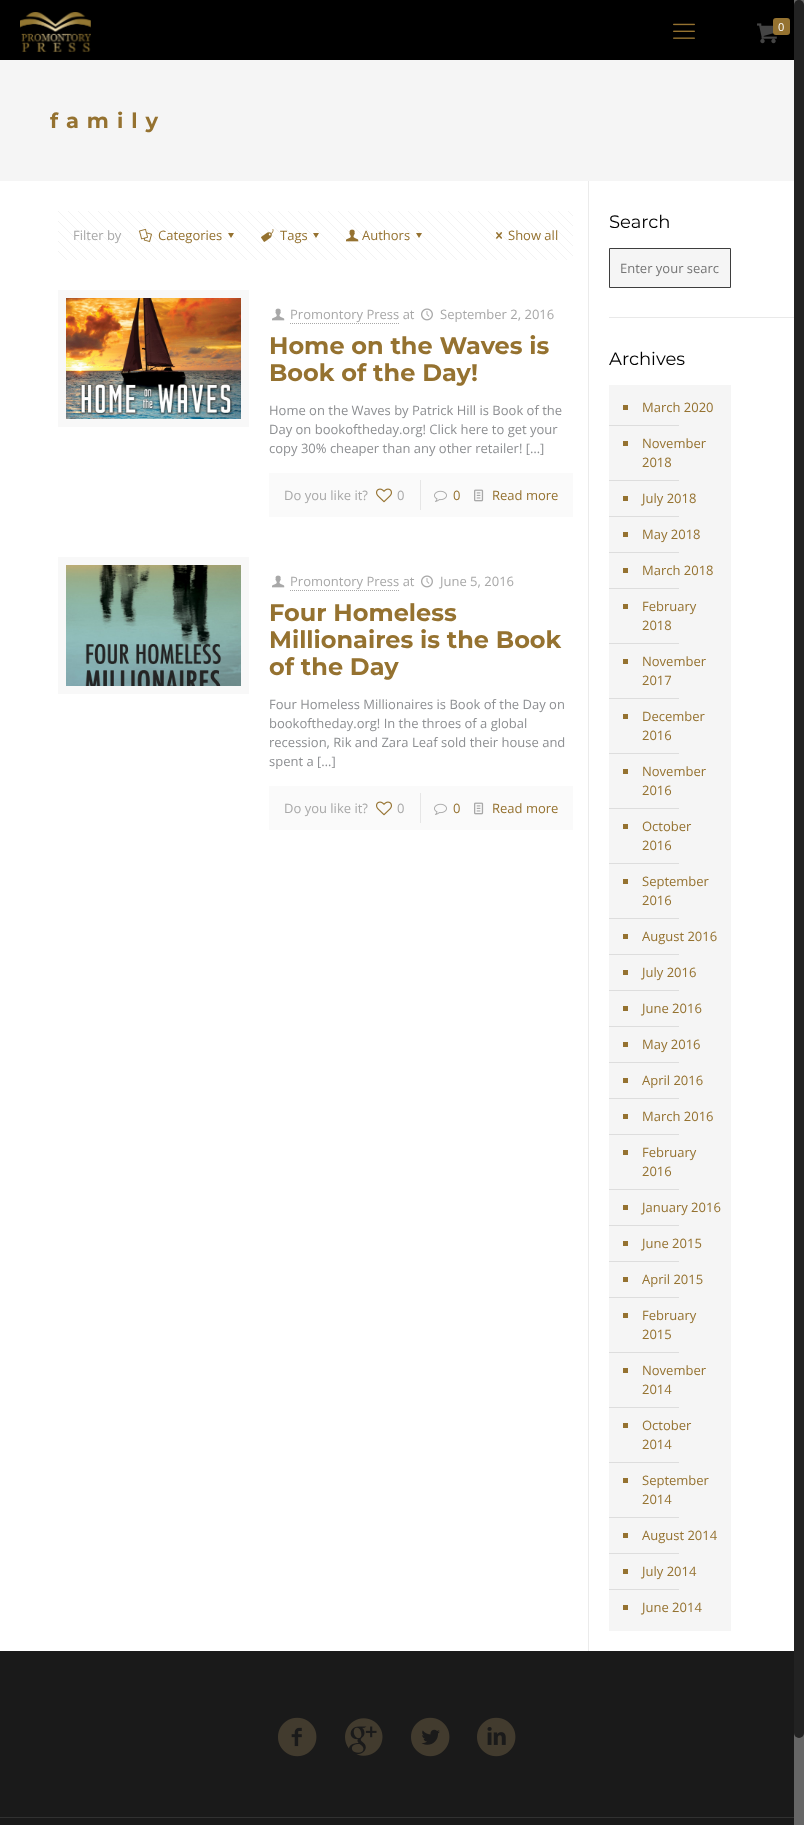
async function draw(canvas) {
  canvas.width = 804
  canvas.height = 1825
  const ctx = canvas.getContext('2d')
  ctx.miterLimit = 4
  ctx.fontKerning = 'normal'
  async function loadImage(src) {
    const img = new Image()
    img.src = src
    await img.decode()
    return img
  }

  ctx.fillStyle = '#fff'
  ctx.fillRect(0, 0, 804, 1825)
  ctx.fillStyle = '#000'
  ctx.fillRect(0, 0, 794, 60)
  ctx.drawImage(await loadImage('image0.png'), 20, 12, 71, 40)
  ctx.drawImage(await loadImage('image1.png'), 673, 23, 22, 16)
  ctx.drawImage(await loadImage('image2.png'), 757, 23, 20, 21)
  ctx.fillStyle = '#957230'
  ctx.beginPath()
  ctx.roundRect(773, 18, 17, 17, 3)
  ctx.fill()
  ctx.font = '11px Open Sans'
  ctx.fillStyle = '#fff'
  ctx.fillText('0', 778, 31)
  ctx.fillStyle = '#666'
  ctx.fillRect(794, 0, 10, 1825)
  ctx.fillStyle = '#222'
  ctx.beginPath()
  ctx.roundRect(794, 0, 10, 1738, 5)
  ctx.fill()
  ctx.fillStyle = '#f5f5f5'
  ctx.fillRect(0, 60, 794, 121)
  ctx.letterSpacing = '8px'
  ctx.font = 'bold 21px Montserrat'
  ctx.fillStyle = '#957230'
  ctx.fillText('family', 50, 128)
  ctx.drawImage(await loadImage('image3.png'), 58, 211, 515, 49)
  ctx.letterSpacing = '0px'
  ctx.font = '13px Open Sans'
  ctx.fillStyle = '#a8a8a8'
  ctx.fillText('Filter by', 73, 240)
  ctx.drawImage(await loadImage('image4.png'), 139, 229, 13, 13)
  ctx.fillStyle = '#957230'
  ctx.fillText('Categories', 158, 240)
  ctx.beginPath()
  ctx.moveTo(234, 233)
  ctx.lineTo(231, 238)
  ctx.lineTo(228, 233)
  ctx.closePath()
  ctx.fill()
  ctx.drawImage(await loadImage('image5.png'), 261, 229, 13, 13)
  ctx.fillText('Tags', 280, 240)
  ctx.beginPath()
  ctx.moveTo(319, 233)
  ctx.lineTo(316, 238)
  ctx.lineTo(313, 233)
  ctx.closePath()
  ctx.fill()
  ctx.drawImage(await loadImage('image6.png'), 346, 229, 13, 13)
  ctx.fillText('Authors', 362, 240)
  ctx.beginPath()
  ctx.moveTo(422, 233)
  ctx.lineTo(419, 238)
  ctx.lineTo(416, 233)
  ctx.closePath()
  ctx.fill()
  ctx.drawImage(await loadImage('image7.png'), 496, 232, 7, 7)
  ctx.fillText('Show all', 508, 240)
  ctx.strokeStyle = '#f8f8f8'
  ctx.lineWidth = 8
  ctx.strokeRect(62, 294, 183, 129)
  ctx.drawImage(await loadImage('image8.png'), 66, 298, 175, 121)
  ctx.drawImage(await loadImage('image9.png'), 272, 308, 13, 13)
  ctx.fillStyle = '#a8a8a8'
  ctx.fillText('Promontory Press at', 290, 319)
  ctx.beginPath()
  ctx.moveTo(290, 323.5)
  ctx.lineTo(400, 323.5)
  ctx.strokeStyle = '#a8a8a8'
  ctx.lineWidth = 1
  ctx.setLineDash([1, 1])
  ctx.stroke()
  ctx.drawImage(await loadImage('image10.png'), 421, 308, 12, 13)
  ctx.fillText('September 2, 2016', 440, 319)
  ctx.font = 'bold 24px Montserrat'
  ctx.fillStyle = '#957230'
  ctx.fillText('Home on the Waves is', 269, 354)
  ctx.fillText('Book of the Day!', 269, 381)
  ctx.font = '13px Open Sans'
  ctx.fillStyle = '#8d8f92'
  ctx.fillText('Home on the Waves by Patrick Hill is Book of the', 269, 415)
  ctx.fillText('Day on bookoftheday.org! Click here to get your', 269, 434)
  ctx.fillText('copy 30% cheaper than any other retailer! […]', 269, 453)
  ctx.fillStyle = '#fafafa'
  ctx.fillRect(269, 473, 304, 44)
  ctx.fillStyle = '#a8a8a8'
  ctx.fillText('Do you like it?', 284, 500)
  ctx.drawImage(await loadImage('image11.png'), 376, 488, 16, 15)
  ctx.fillText('0', 397, 500)
  ctx.fillStyle = '#e6e6e6'
  ctx.fillRect(420, 480, 1, 30)
  ctx.drawImage(await loadImage('image12.png'), 434, 490, 13, 12)
  ctx.fillStyle = '#957230'
  ctx.fillText('0', 453, 500)
  ctx.drawImage(await loadImage('image13.png'), 474, 489, 10, 13)
  ctx.fillText('Read more', 492, 500)
  ctx.strokeStyle = '#f8f8f8'
  ctx.lineWidth = 8
  ctx.setLineDash([])
  ctx.strokeRect(62, 561, 183, 129)
  ctx.drawImage(await loadImage('image14.png'), 66, 565, 175, 121)
  ctx.drawImage(await loadImage('image9.png'), 272, 575, 13, 13)
  ctx.fillStyle = '#a8a8a8'
  ctx.fillText('Promontory Press at', 290, 586)
  ctx.beginPath()
  ctx.moveTo(290, 590.5)
  ctx.lineTo(400, 590.5)
  ctx.strokeStyle = '#a8a8a8'
  ctx.lineWidth = 1
  ctx.setLineDash([1, 1])
  ctx.stroke()
  ctx.drawImage(await loadImage('image10.png'), 421, 575, 12, 13)
  ctx.fillText('June 5, 2016', 440, 586)
  ctx.font = 'bold 24px Montserrat'
  ctx.fillStyle = '#957230'
  ctx.fillText('Four Homeless', 269, 621)
  ctx.fillText('Millionaires is the Book', 269, 648)
  ctx.fillText('of the Day', 269, 675)
  ctx.font = '13px Open Sans'
  ctx.fillStyle = '#8d8f92'
  ctx.fillText('Four Homeless Millionaires is Book of the Day on', 269, 709)
  ctx.fillText('bookoftheday.org! In the throes of a global', 269, 728)
  ctx.fillText('recession, Rik and Zara Leaf sold their house and', 269, 747)
  ctx.fillText('spent a […]', 269, 766)
  ctx.fillStyle = '#fafafa'
  ctx.fillRect(269, 786, 304, 44)
  ctx.fillStyle = '#a8a8a8'
  ctx.fillText('Do you like it?', 284, 813)
  ctx.drawImage(await loadImage('image11.png'), 376, 801, 16, 15)
  ctx.fillText('0', 397, 813)
  ctx.fillStyle = '#e6e6e6'
  ctx.fillRect(420, 793, 1, 30)
  ctx.drawImage(await loadImage('image12.png'), 434, 803, 13, 12)
  ctx.fillStyle = '#957230'
  ctx.fillText('0', 453, 813)
  ctx.drawImage(await loadImage('image13.png'), 474, 802, 10, 13)
  ctx.fillText('Read more', 492, 813)
  ctx.fillStyle = '#ebebeb'
  ctx.fillRect(588, 181, 1, 1470)
  ctx.font = '18px Montserrat'
  ctx.fillStyle = '#000'
  ctx.fillText('Search', 609, 228)
  ctx.fillStyle = '#f5f5f5'
  ctx.beginPath()
  ctx.rect(609.5, 248.5, 121, 39)
  ctx.fill()
  ctx.strokeStyle = '#3e3e3e'
  ctx.setLineDash([])
  ctx.stroke()
  ctx.font = '13px Open Sans'
  ctx.fillStyle = '#757575'
  ctx.fillText('Enter your searc', 620, 273)
  ctx.fillStyle = '#e9e9e9'
  ctx.fillRect(609, 317, 185, 1)
  ctx.font = '18px Montserrat'
  ctx.fillStyle = '#000'
  ctx.fillText('Archives', 609, 365)
  ctx.fillStyle = '#f5f5f5'
  ctx.fillRect(609, 385, 122, 1246)
  ctx.fillStyle = '#957230'
  ctx.fillRect(623, 405, 5, 5)
  ctx.font = '13px Open Sans'
  ctx.fillText('March 2020', 642, 412)
  ctx.fillStyle = '#ddd'
  ctx.fillRect(609, 425, 70, 1)
  ctx.fillStyle = '#957230'
  ctx.fillRect(623, 441, 5, 5)
  ctx.fillText('November', 642, 448)
  ctx.fillText('2018', 642, 467)
  ctx.fillStyle = '#ddd'
  ctx.fillRect(609, 480, 70, 1)
  ctx.fillStyle = '#957230'
  ctx.fillRect(623, 496, 5, 5)
  ctx.fillText('July 2018', 642, 503)
  ctx.fillStyle = '#ddd'
  ctx.fillRect(609, 516, 70, 1)
  ctx.fillStyle = '#957230'
  ctx.fillRect(623, 532, 5, 5)
  ctx.fillText('May 2018', 642, 539)
  ctx.fillStyle = '#ddd'
  ctx.fillRect(609, 552, 70, 1)
  ctx.fillStyle = '#957230'
  ctx.fillRect(623, 568, 5, 5)
  ctx.fillText('March 2018', 642, 575)
  ctx.fillStyle = '#ddd'
  ctx.fillRect(609, 588, 70, 1)
  ctx.fillStyle = '#957230'
  ctx.fillRect(623, 604, 5, 5)
  ctx.fillText('February', 642, 611)
  ctx.fillText('2018', 642, 630)
  ctx.fillStyle = '#ddd'
  ctx.fillRect(609, 643, 70, 1)
  ctx.fillStyle = '#957230'
  ctx.fillRect(623, 659, 5, 5)
  ctx.fillText('November', 642, 666)
  ctx.fillText('2017', 642, 685)
  ctx.fillStyle = '#ddd'
  ctx.fillRect(609, 698, 70, 1)
  ctx.fillStyle = '#957230'
  ctx.fillRect(623, 714, 5, 5)
  ctx.fillText('December', 642, 721)
  ctx.fillText('2016', 642, 740)
  ctx.fillStyle = '#ddd'
  ctx.fillRect(609, 753, 70, 1)
  ctx.fillStyle = '#957230'
  ctx.fillRect(623, 769, 5, 5)
  ctx.fillText('November', 642, 776)
  ctx.fillText('2016', 642, 795)
  ctx.fillStyle = '#ddd'
  ctx.fillRect(609, 808, 70, 1)
  ctx.fillStyle = '#957230'
  ctx.fillRect(623, 824, 5, 5)
  ctx.fillText('October', 642, 831)
  ctx.fillText('2016', 642, 850)
  ctx.fillStyle = '#ddd'
  ctx.fillRect(609, 863, 70, 1)
  ctx.fillStyle = '#957230'
  ctx.fillRect(623, 879, 5, 5)
  ctx.fillText('September', 642, 886)
  ctx.fillText('2016', 642, 905)
  ctx.fillStyle = '#ddd'
  ctx.fillRect(609, 918, 70, 1)
  ctx.fillStyle = '#957230'
  ctx.fillRect(623, 934, 5, 5)
  ctx.fillText('August 2016', 642, 941)
  ctx.fillStyle = '#ddd'
  ctx.fillRect(609, 954, 70, 1)
  ctx.fillStyle = '#957230'
  ctx.fillRect(623, 970, 5, 5)
  ctx.fillText('July 2016', 642, 977)
  ctx.fillStyle = '#ddd'
  ctx.fillRect(609, 990, 70, 1)
  ctx.fillStyle = '#957230'
  ctx.fillRect(623, 1006, 5, 5)
  ctx.fillText('June 2016', 642, 1013)
  ctx.fillStyle = '#ddd'
  ctx.fillRect(609, 1026, 70, 1)
  ctx.fillStyle = '#957230'
  ctx.fillRect(623, 1042, 5, 5)
  ctx.fillText('May 2016', 642, 1049)
  ctx.fillStyle = '#ddd'
  ctx.fillRect(609, 1062, 70, 1)
  ctx.fillStyle = '#957230'
  ctx.fillRect(623, 1078, 5, 5)
  ctx.fillText('April 2016', 642, 1085)
  ctx.fillStyle = '#ddd'
  ctx.fillRect(609, 1098, 70, 1)
  ctx.fillStyle = '#957230'
  ctx.fillRect(623, 1114, 5, 5)
  ctx.fillText('March 2016', 642, 1121)
  ctx.fillStyle = '#ddd'
  ctx.fillRect(609, 1134, 70, 1)
  ctx.fillStyle = '#957230'
  ctx.fillRect(623, 1150, 5, 5)
  ctx.fillText('February', 642, 1157)
  ctx.fillText('2016', 642, 1176)
  ctx.fillStyle = '#ddd'
  ctx.fillRect(609, 1189, 70, 1)
  ctx.fillStyle = '#957230'
  ctx.fillRect(623, 1205, 5, 5)
  ctx.fillText('January 2016', 642, 1212)
  ctx.fillStyle = '#ddd'
  ctx.fillRect(609, 1225, 70, 1)
  ctx.fillStyle = '#957230'
  ctx.fillRect(623, 1241, 5, 5)
  ctx.fillText('June 2015', 642, 1248)
  ctx.fillStyle = '#ddd'
  ctx.fillRect(609, 1261, 70, 1)
  ctx.fillStyle = '#957230'
  ctx.fillRect(623, 1277, 5, 5)
  ctx.fillText('April 2015', 642, 1284)
  ctx.fillStyle = '#ddd'
  ctx.fillRect(609, 1297, 70, 1)
  ctx.fillStyle = '#957230'
  ctx.fillRect(623, 1313, 5, 5)
  ctx.fillText('February', 642, 1320)
  ctx.fillText('2015', 642, 1339)
  ctx.fillStyle = '#ddd'
  ctx.fillRect(609, 1352, 70, 1)
  ctx.fillStyle = '#957230'
  ctx.fillRect(623, 1368, 5, 5)
  ctx.fillText('November', 642, 1375)
  ctx.fillText('2014', 642, 1394)
  ctx.fillStyle = '#ddd'
  ctx.fillRect(609, 1407, 70, 1)
  ctx.fillStyle = '#957230'
  ctx.fillRect(623, 1423, 5, 5)
  ctx.fillText('October', 642, 1430)
  ctx.fillText('2014', 642, 1449)
  ctx.fillStyle = '#ddd'
  ctx.fillRect(609, 1462, 70, 1)
  ctx.fillStyle = '#957230'
  ctx.fillRect(623, 1478, 5, 5)
  ctx.fillText('September', 642, 1485)
  ctx.fillText('2014', 642, 1504)
  ctx.fillStyle = '#ddd'
  ctx.fillRect(609, 1517, 70, 1)
  ctx.fillStyle = '#957230'
  ctx.fillRect(623, 1533, 5, 5)
  ctx.fillText('August 2014', 642, 1540)
  ctx.fillStyle = '#ddd'
  ctx.fillRect(609, 1553, 70, 1)
  ctx.fillStyle = '#957230'
  ctx.fillRect(623, 1569, 5, 5)
  ctx.fillText('July 2014', 642, 1576)
  ctx.fillStyle = '#ddd'
  ctx.fillRect(609, 1589, 70, 1)
  ctx.fillStyle = '#957230'
  ctx.fillRect(623, 1605, 5, 5)
  ctx.fillText('June 2014', 642, 1612)
  ctx.fillStyle = '#1a1a1a'
  ctx.fillRect(0, 1651, 794, 174)
  ctx.drawImage(await loadImage('image15.png'), 278, 1717, 39, 40)
  ctx.drawImage(await loadImage('image16.png'), 345, 1718, 38, 38)
  ctx.drawImage(await loadImage('image17.png'), 411, 1717, 39, 40)
  ctx.drawImage(await loadImage('image18.png'), 477, 1717, 39, 40)
  ctx.fillStyle = '#313131'
  ctx.fillRect(0, 1817, 794, 1)
}

draw(document.querySelector('canvas'))
